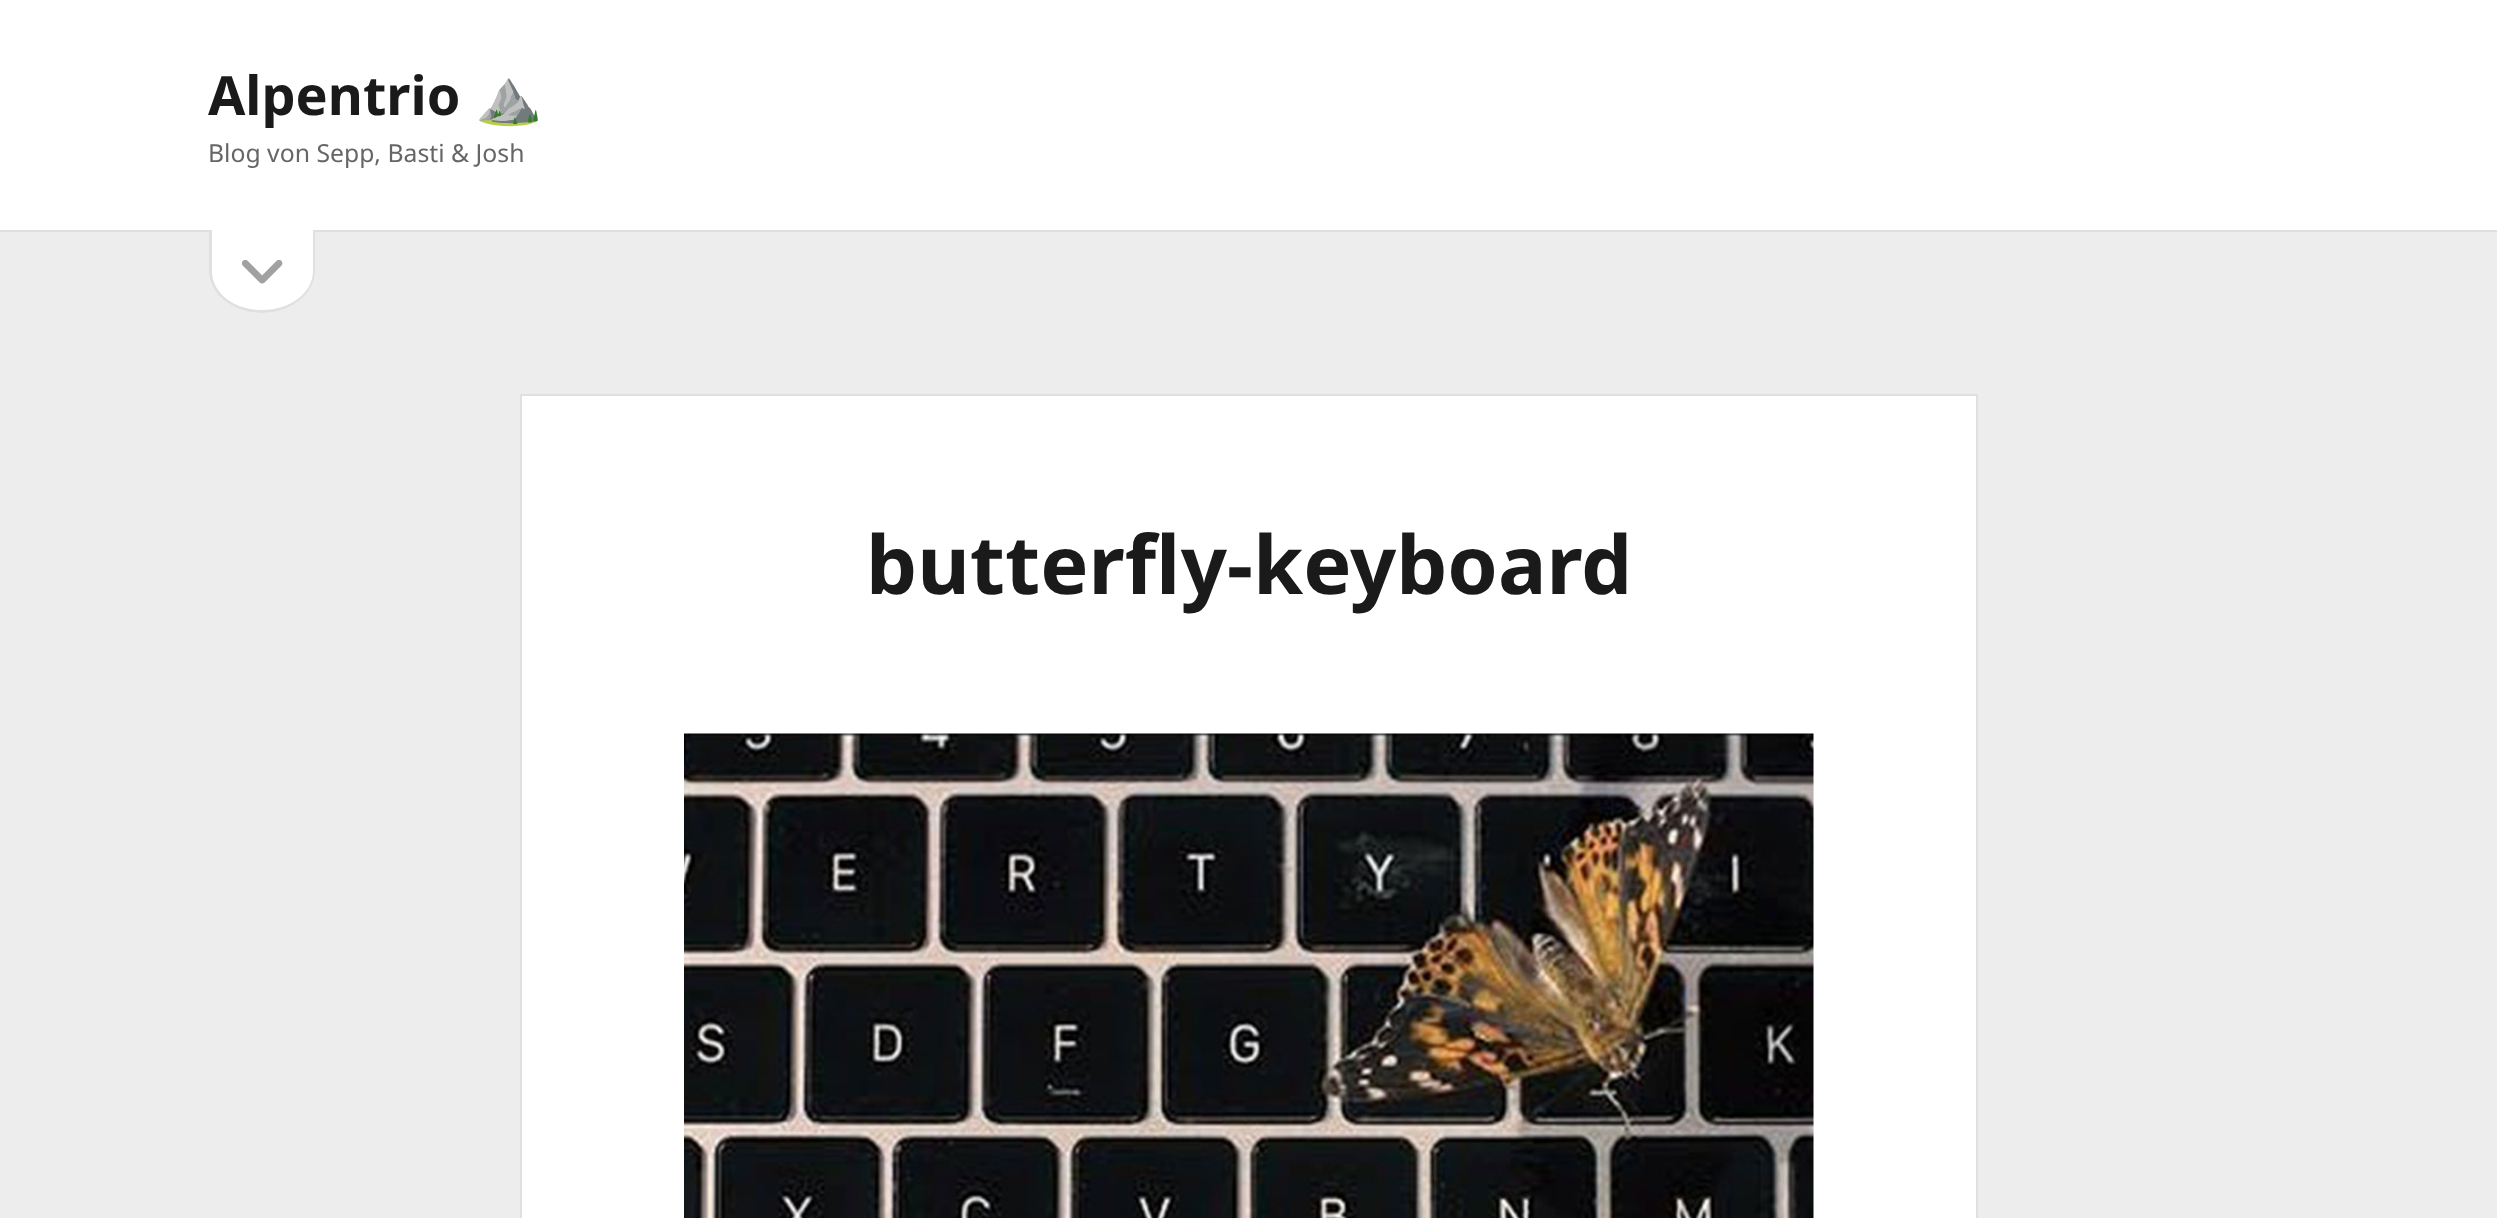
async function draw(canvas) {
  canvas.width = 2497
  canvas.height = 1218
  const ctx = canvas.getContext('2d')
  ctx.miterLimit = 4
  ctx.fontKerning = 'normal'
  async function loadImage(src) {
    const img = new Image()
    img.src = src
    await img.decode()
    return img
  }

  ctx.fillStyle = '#ededed'
  ctx.fillRect(0, 0, 2497, 1218)
  ctx.fillStyle = '#fff'
  ctx.fillRect(0, 0, 2497, 230)
  ctx.fillStyle = '#e0e0e0'
  ctx.fillRect(0, 230, 2497, 2)
  ctx.font = 'bold 54px Noto Sans'
  ctx.fillStyle = '#1a1a1a'
  ctx.fillText('Alpentrio', 208, 115)
  ctx.font = 'bold 54px Noto Color Emoji'
  ctx.fillText('⛰️', 475, 115)
  ctx.font = '24.75px Noto Sans'
  ctx.fillStyle = '#666'
  ctx.fillText('Blog von Sepp, Basti & Josh', 208, 162)
  ctx.fillStyle = '#fff'
  ctx.beginPath()
  ctx.moveTo(209, 230)
  ctx.lineTo(315, 230)
  ctx.lineTo(315, 271)
  ctx.bezierCurveTo(315, 294, 291, 313, 262, 313)
  ctx.bezierCurveTo(233, 313, 209, 294, 209, 271)
  ctx.closePath()
  ctx.fill()
  ctx.fillStyle = '#e0e0e0'
  ctx.beginPath()
  ctx.moveTo(209, 230)
  ctx.lineTo(315, 230)
  ctx.lineTo(315, 271)
  ctx.bezierCurveTo(315, 294, 291, 313, 262, 313)
  ctx.bezierCurveTo(233, 313, 209, 294, 209, 271)
  ctx.closePath()
  ctx.moveTo(212, 230)
  ctx.lineTo(313, 230)
  ctx.lineTo(313, 271)
  ctx.bezierCurveTo(313, 293, 290, 310, 262, 310)
  ctx.bezierCurveTo(234, 310, 212, 293, 212, 271)
  ctx.closePath()
  ctx.fill('evenodd')
  ctx.drawImage(await loadImage('image0.png'), 241, 259, 42, 25)
  ctx.fillStyle = '#fff'
  ctx.beginPath()
  ctx.rect(521, 395, 1456, 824)
  ctx.fill()
  ctx.strokeStyle = '#e0e0e0'
  ctx.lineWidth = 2
  ctx.stroke()
  ctx.font = 'bold 81px Noto Sans'
  ctx.fillStyle = '#1a1a1a'
  ctx.fillText('butterfly-keyboard', 866, 594)
  ctx.drawImage(await loadImage('image1.png'), 684, 733, 1130, 485)
}

draw(document.querySelector('canvas'))
